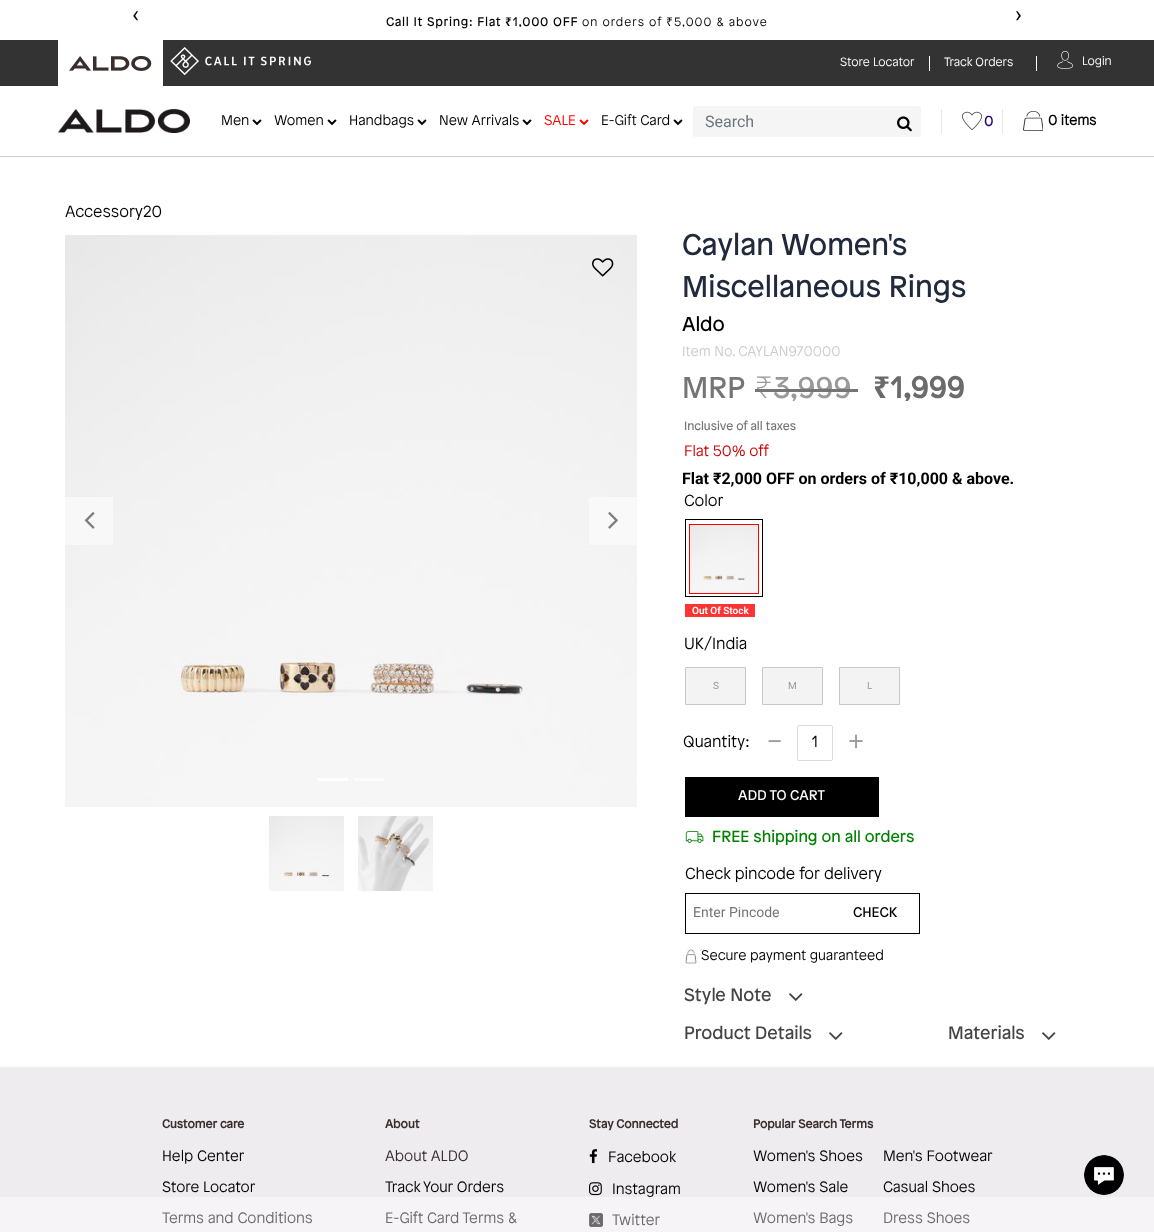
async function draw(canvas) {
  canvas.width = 1154
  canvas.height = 1232
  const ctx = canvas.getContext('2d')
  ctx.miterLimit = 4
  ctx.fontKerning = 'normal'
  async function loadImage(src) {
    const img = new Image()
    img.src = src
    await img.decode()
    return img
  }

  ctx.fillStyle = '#fff'
  ctx.fillRect(0, 0, 1154, 1232)
  ctx.font = '23px Roboto'
  ctx.fillStyle = '#000'
  ctx.fillText('‹', 132, 22)
  ctx.letterSpacing = '1px'
  ctx.font = 'bold 12px "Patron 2"'
  ctx.fillText('Call It Spring: Flat', 386, 26)
  ctx.font = '600 12px Noto Sans'
  ctx.fillText('₹', 505, 26)
  ctx.font = 'bold 12px "Patron 2"'
  ctx.fillText('1,000 OFF', 513, 26)
  ctx.font = '300 12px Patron'
  ctx.fillText('on orders of', 582, 26)
  ctx.font = '12px Noto Sans'
  ctx.fillText('₹', 666, 26)
  ctx.font = '300 12px Patron'
  ctx.fillText('5,000 & above', 674, 26)
  ctx.letterSpacing = '0px'
  ctx.font = '23px Roboto'
  ctx.fillText('›', 1015, 22)
  ctx.fillStyle = '#333'
  ctx.fillRect(0, 40, 1154, 46)
  ctx.drawImage(await loadImage('image0.png'), 58, 40, 105, 46)
  ctx.drawImage(await loadImage('image1.png'), 170, 47, 141, 29)
  ctx.font = '300 12px Patron'
  ctx.fillStyle = '#fff'
  ctx.fillText('Store Locator', 840, 66)
  ctx.fillRect(929, 56, 1, 15)
  ctx.fillText('Track Orders', 944, 66)
  ctx.fillRect(1036, 56, 1, 15)
  ctx.drawImage(await loadImage('image2.png'), 1057, 51, 16, 18)
  ctx.fillText('Login', 1082, 65)
  ctx.fillStyle = '#ccc'
  ctx.fillRect(0, 156, 1154, 1)
  ctx.drawImage(await loadImage('image3.png'), 58, 109, 132, 24)
  ctx.font = '300 14px Patron'
  ctx.fillStyle = '#000'
  ctx.fillText('Men', 221, 125)
  ctx.drawImage(await loadImage('image4.png'), 252, 119, 10, 7)
  ctx.fillText('Women', 274, 125)
  ctx.drawImage(await loadImage('image4.png'), 327, 119, 10, 7)
  ctx.fillText('Handbags', 349, 125)
  ctx.drawImage(await loadImage('image4.png'), 417, 119, 10, 7)
  ctx.fillText('New Arrivals', 439, 125)
  ctx.drawImage(await loadImage('image4.png'), 522, 119, 10, 7)
  ctx.fillStyle = '#f00'
  ctx.fillText('SALE', 544, 125)
  ctx.drawImage(await loadImage('image5.png'), 579, 119, 10, 7)
  ctx.fillStyle = '#000'
  ctx.fillText('E-Gift Card', 601, 125)
  ctx.drawImage(await loadImage('image4.png'), 673, 119, 10, 7)
  ctx.fillStyle = '#f5f5f6'
  ctx.beginPath()
  ctx.roundRect(693, 106, 228, 31, 3)
  ctx.fill()
  ctx.font = '16px Roboto'
  ctx.fillStyle = '#6c757d'
  ctx.fillText('Search', 705, 127)
  ctx.drawImage(await loadImage('image6.png'), 897, 116, 15, 16)
  ctx.fillStyle = '#e6e6e6'
  ctx.fillRect(941, 109, 1, 24)
  ctx.drawImage(await loadImage('image7.png'), 962, 111, 20, 20)
  ctx.font = 'bold 14px "Patron 2"'
  ctx.fillStyle = '#230077'
  ctx.fillText('0', 984, 126)
  ctx.fillStyle = '#e6e6e6'
  ctx.fillRect(1002, 109, 1, 24)
  ctx.drawImage(await loadImage('image8.png'), 1023, 111, 20, 20)
  ctx.fillStyle = '#000'
  ctx.fillText('0 items', 1048, 125)
  ctx.font = '300 16px Patron'
  ctx.fillText('Accessory20', 65, 217)
  ctx.drawImage(await loadImage('image9.png'), 65, 235, 572, 572)
  ctx.fillStyle = '#f8f8f8'
  ctx.fillRect(65, 497, 48, 48)
  ctx.drawImage(await loadImage('image10.png'), 84, 512, 11, 17)
  ctx.fillStyle = '#f9f9f9'
  ctx.fillRect(589, 497, 48, 48)
  ctx.drawImage(await loadImage('image11.png'), 608, 512, 10, 17)
  ctx.fillStyle = '#fff'
  ctx.fillRect(318, 778, 30, 3)
  ctx.fillStyle = '#fbfbfb'
  ctx.fillRect(354, 778, 30, 3)
  ctx.drawImage(await loadImage('image12.png'), 592, 258, 22, 19)
  ctx.drawImage(await loadImage('image13.png'), 269, 816, 75, 75)
  ctx.drawImage(await loadImage('image14.png'), 358, 816, 75, 75)
  ctx.font = '30px Patron'
  ctx.fillStyle = '#21293c'
  ctx.fillText('Caylan Women\'s', 682, 255)
  ctx.fillText('Miscellaneous Rings', 682, 297)
  ctx.font = '20px Patron'
  ctx.fillStyle = '#000'
  ctx.fillText('Aldo', 682, 331)
  ctx.font = '300 14px Patron'
  ctx.fillStyle = '#ccc'
  ctx.fillText('Item No. CAYLAN970000', 682, 356)
  ctx.font = '30px Patron'
  ctx.fillStyle = '#757575'
  ctx.fillText('MRP', 682, 398)
  ctx.font = '200 30px Noto Sans'
  ctx.fillStyle = '#999'
  ctx.fillText('₹', 755, 398)
  ctx.font = '30px Patron'
  ctx.fillText('3,999', 773, 398)
  ctx.fillStyle = '#767676'
  ctx.fillRect(755, 389, 103, 3)
  ctx.font = 'bold 30px Noto Sans'
  ctx.fillStyle = '#6b6b6b'
  ctx.fillText('₹', 873, 398)
  ctx.font = 'bold 30px Patron'
  ctx.fillText('1,999', 891, 398)
  ctx.font = '12px Patron'
  ctx.fillStyle = '#757575'
  ctx.fillText('Inclusive of all taxes', 684, 430)
  ctx.font = '300 15px Patron'
  ctx.fillStyle = '#c00'
  ctx.fillText('Flat 50% off', 684, 456)
  ctx.font = 'bold 16px Roboto'
  ctx.fillStyle = '#000'
  ctx.fillText('Flat ₹2,000 OFF on orders of ₹10,000 & above.', 682, 484)
  ctx.font = '300 16px Patron'
  ctx.fillText('Color', 684, 506)
  ctx.drawImage(await loadImage('image15.png'), 690, 525, 68, 68)
  ctx.strokeStyle = '#f00'
  ctx.strokeRect(689.5, 524.5, 69, 69)
  ctx.strokeStyle = '#000'
  ctx.strokeRect(685.5, 519.5, 77, 77)
  ctx.fillStyle = '#f33'
  ctx.fillRect(685, 604, 70, 13)
  ctx.font = '600 10px Roboto'
  ctx.fillStyle = '#fff'
  ctx.fillText('Out Of Stock', 692, 614)
  ctx.font = '300 16px Patron'
  ctx.fillStyle = '#000'
  ctx.fillText('UK/India', 684, 649)
  ctx.fillStyle = '#f3f3f3'
  ctx.beginPath()
  ctx.rect(685.5, 667.5, 60, 37)
  ctx.fill()
  ctx.strokeStyle = '#c7c7c7'
  ctx.stroke()
  ctx.font = '10px Roboto'
  ctx.fillStyle = '#999'
  ctx.fillText('S', 713, 689)
  ctx.fillStyle = '#f3f3f3'
  ctx.beginPath()
  ctx.rect(762.5, 667.5, 60, 37)
  ctx.fill()
  ctx.stroke()
  ctx.fillStyle = '#999'
  ctx.fillText('M', 788, 689)
  ctx.fillStyle = '#f3f3f3'
  ctx.beginPath()
  ctx.rect(839.5, 667.5, 60, 37)
  ctx.fill()
  ctx.stroke()
  ctx.fillStyle = '#999'
  ctx.fillText('L', 867, 689)
  ctx.font = '300 16px Patron'
  ctx.fillStyle = '#000'
  ctx.fillText('Quantity:', 683, 747)
  ctx.font = '300 28px Patron'
  ctx.fillStyle = '#a39d9d'
  ctx.fillText('−', 767, 751)
  ctx.beginPath()
  ctx.roundRect(797.5, 725.5, 35, 35, 1.5)
  ctx.strokeStyle = '#dbdbdb'
  ctx.stroke()
  ctx.font = '300 16px Patron'
  ctx.fillStyle = '#000'
  ctx.fillText('1', 812, 747)
  ctx.font = '300 28px Patron'
  ctx.fillStyle = '#a39d9d'
  ctx.fillText('+', 848, 751)
  ctx.fillStyle = '#000'
  ctx.fillRect(686, 778, 192, 38)
  ctx.strokeStyle = '#000'
  ctx.strokeRect(685.5, 777.5, 193, 39)
  ctx.font = '14px Patron'
  ctx.fillStyle = '#fff'
  ctx.fillText('ADD TO CART', 738, 800)
  ctx.drawImage(await loadImage('image16.png'), 685, 831, 19, 12)
  ctx.font = '16px Patron'
  ctx.fillStyle = '#008000'
  ctx.fillText('FREE shipping on all orders', 712, 842)
  ctx.font = '300 16px Patron'
  ctx.fillStyle = '#000'
  ctx.fillText('Check pincode for delivery', 685, 879)
  ctx.strokeRect(685.5, 893.5, 234, 40)
  ctx.font = '14px Roboto'
  ctx.fillStyle = '#757575'
  ctx.fillText('Enter Pincode', 693, 917)
  ctx.font = '14px Patron'
  ctx.fillStyle = '#000'
  ctx.fillText('CHECK', 853, 917)
  ctx.drawImage(await loadImage('image17.png'), 685, 949, 12, 15)
  ctx.font = '300 14px Patron'
  ctx.fillText('Secure payment guaranteed', 701, 960)
  ctx.font = '18px Patron'
  ctx.fillStyle = '#444'
  ctx.fillText('Style Note', 684, 1001)
  ctx.drawImage(await loadImage('image18.png'), 789, 993, 14, 8)
  ctx.fillText('Product Details', 684, 1039)
  ctx.drawImage(await loadImage('image18.png'), 829, 1032, 14, 8)
  ctx.fillText('Materials', 948, 1039)
  ctx.drawImage(await loadImage('image18.png'), 1042, 1032, 14, 8)
  ctx.fillStyle = '#efecf0'
  ctx.fillRect(0, 1067, 1154, 130)
  ctx.fillStyle = '#f6f4f6'
  ctx.fillRect(0, 1197, 1154, 35)
  ctx.font = 'bold 12px Patron'
  ctx.fillStyle = '#3a2e2c'
  ctx.fillText('Customer care', 162, 1128)
  ctx.font = '300 15px Patron'
  ctx.fillStyle = '#000'
  ctx.fillText('Help Center', 162, 1161)
  ctx.fillText('Store Locator', 162, 1192)
  ctx.fillStyle = '#6b6b6b'
  ctx.fillText('Terms and Conditions', 162, 1223)
  ctx.font = 'bold 12px Patron'
  ctx.fillStyle = '#3a2e2c'
  ctx.fillText('About', 385, 1128)
  ctx.font = '300 15px Patron'
  ctx.fillText('About ALDO', 385, 1161)
  ctx.fillStyle = '#000'
  ctx.fillText('Track', 385, 1192)
  ctx.fillText('Your Orders', 423, 1192)
  ctx.fillStyle = '#6b6b6b'
  ctx.fillText('E-Gift Card Terms &', 385, 1223)
  ctx.font = 'bold 12px Patron'
  ctx.fillStyle = '#3a2e2c'
  ctx.fillText('Stay Connected', 589, 1128)
  ctx.drawImage(await loadImage('image19.png'), 589, 1149, 9, 15)
  ctx.font = '300 15px Patron'
  ctx.fillStyle = '#000'
  ctx.fillText('Facebook', 608, 1162)
  ctx.drawImage(await loadImage('image20.png'), 589, 1182, 13, 14)
  ctx.fillText('Instagram', 612, 1194)
  ctx.drawImage(await loadImage('image21.png'), 589, 1213, 14, 14)
  ctx.fillStyle = '#6b6b6b'
  ctx.fillText('Twitter', 612, 1225)
  ctx.font = 'bold 12px Patron'
  ctx.fillStyle = '#3a2e2c'
  ctx.fillText('Popular Search Terms', 753, 1128)
  ctx.font = '300 15px Patron'
  ctx.fillStyle = '#000'
  ctx.fillText('Women\'s Shoes', 753, 1161)
  ctx.fillText('Women\'s Sale', 753, 1192)
  ctx.fillStyle = '#6b6b6b'
  ctx.fillText('Women\'s Bags', 753, 1223)
  ctx.fillStyle = '#000'
  ctx.fillText('Men\'s Footwear', 883, 1161)
  ctx.fillText('Casual Shoes', 883, 1192)
  ctx.fillStyle = '#6b6b6b'
  ctx.fillText('Dress Shoes', 883, 1223)
  ctx.drawImage(await loadImage('image22.png'), 1084, 1155, 40, 40)
}

draw(document.querySelector('canvas'))
